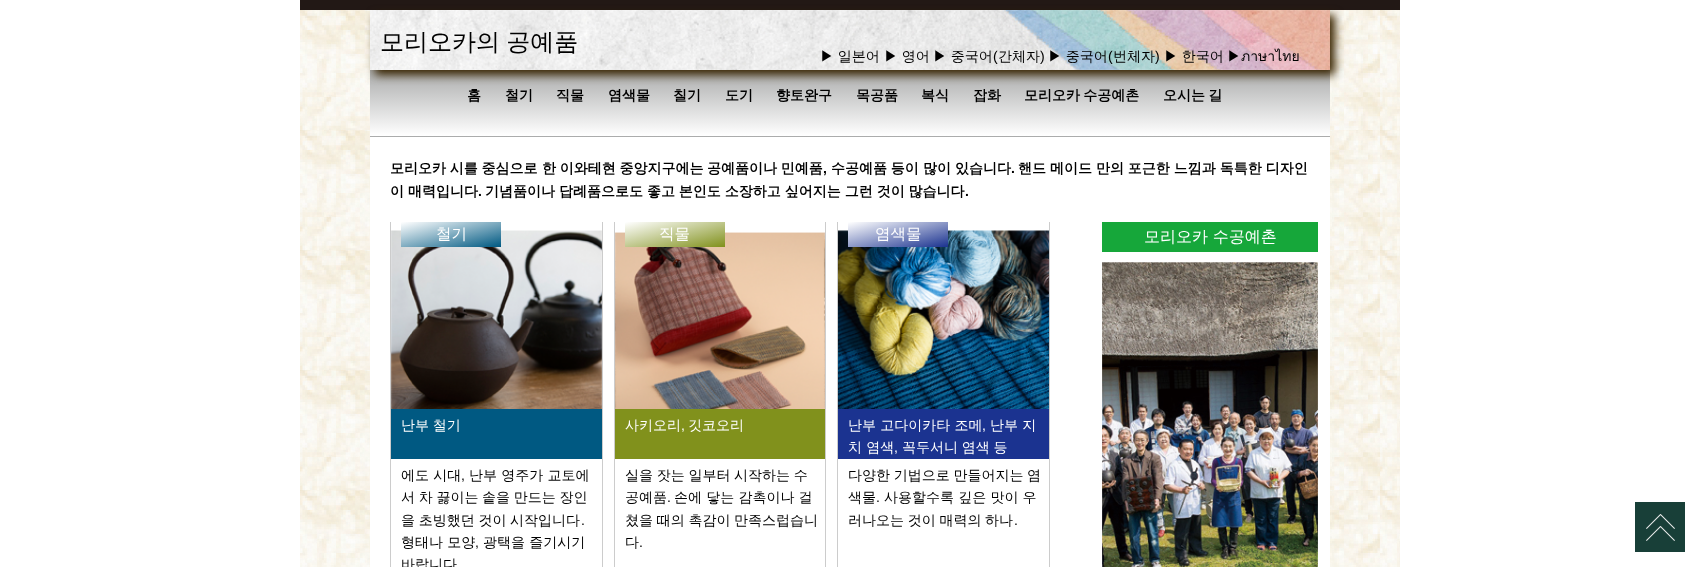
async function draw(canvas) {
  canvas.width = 1700
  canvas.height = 567
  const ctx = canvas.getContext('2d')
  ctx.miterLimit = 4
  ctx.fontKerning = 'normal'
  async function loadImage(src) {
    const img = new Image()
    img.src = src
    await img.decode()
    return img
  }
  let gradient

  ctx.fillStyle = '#fff'
  ctx.fillRect(0, 0, 1700, 567)
  ctx.drawImage(await loadImage('image0.png'), 300, 10, 1100, 557)
  ctx.fillStyle = '#221815'
  ctx.fillRect(300, 0, 1100, 10)
  gradient = ctx.createLinearGradient(850, 70, 850, 136)
  gradient.addColorStop(0, '#aaabab')
  gradient.addColorStop(1, '#fff')
  ctx.fillStyle = gradient
  ctx.fillRect(370, 70, 960, 66)
  ctx.fillStyle = '#382400'
  ctx.filter = 'blur(5px)'
  ctx.beginPath()
  ctx.rect(375, 15, 960, 60)
  ctx.fill()
  ctx.filter = 'none'
  ctx.drawImage(await loadImage('image1.png'), 370, 10, 960, 60)
  ctx.wordSpacing = '-1px'
  ctx.font = '500 24px WenQuanYi Zen Hei'
  ctx.fillStyle = '#000'
  ctx.fillText('모리오카의 공예품', 380, 50)
  ctx.wordSpacing = '-0.5px'
  ctx.font = '500 14px WenQuanYi Zen Hei'
  ctx.fillText('▶ 일본어', 820, 61)
  ctx.fillText('▶ 영어', 884, 61)
  ctx.fillText('▶ 중국어', 933, 61)
  ctx.wordSpacing = '0px'
  ctx.font = '14px Liberation Sans'
  ctx.fillText('(', 993, 61)
  ctx.font = '500 14px WenQuanYi Zen Hei'
  ctx.fillText('간체자', 998, 61)
  ctx.font = '14px Liberation Sans'
  ctx.fillText(')', 1040, 61)
  ctx.wordSpacing = '-0.5px'
  ctx.font = '500 14px WenQuanYi Zen Hei'
  ctx.fillText('▶ 중국어', 1048, 61)
  ctx.wordSpacing = '0px'
  ctx.font = '14px Liberation Sans'
  ctx.fillText('(', 1108, 61)
  ctx.font = '500 14px WenQuanYi Zen Hei'
  ctx.fillText('번체자', 1113, 61)
  ctx.font = '14px Liberation Sans'
  ctx.fillText(')', 1155, 61)
  ctx.wordSpacing = '-0.5px'
  ctx.font = '500 14px WenQuanYi Zen Hei'
  ctx.fillText('▶ 한국어', 1164, 61)
  ctx.wordSpacing = '0px'
  ctx.fillText('▶', 1227, 61)
  ctx.font = '14px Loma'
  ctx.fillText('ภาษาไทย', 1241, 61)
  gradient = ctx.createLinearGradient(850, 136, 850, 202)
  gradient.addColorStop(0, '#aaabab')
  gradient.addColorStop(1, '#fff')
  ctx.fillStyle = gradient
  ctx.fillRect(370, 136, 960, 1)
  ctx.font = 'bold 14px WenQuanYi Zen Hei'
  ctx.fillStyle = '#000'
  ctx.fillText('홈', 467, 100)
  ctx.fillText('철기', 505, 100)
  ctx.fillText('직물', 556, 100)
  ctx.fillText('염색물', 608, 100)
  ctx.fillText('칠기', 673, 100)
  ctx.fillText('도기', 725, 100)
  ctx.fillText('향토완구', 776, 100)
  ctx.fillText('목공품', 856, 100)
  ctx.fillText('복식', 921, 100)
  ctx.fillText('잡화', 973, 100)
  ctx.wordSpacing = '-1px'
  ctx.fillText('모리오카 수공예촌', 1024, 100)
  ctx.fillText('오시는 길', 1163, 100)
  ctx.fillStyle = '#fff'
  ctx.fillRect(370, 137, 960, 430)
  ctx.wordSpacing = '-0.5px'
  ctx.fillStyle = '#000'
  ctx.fillText('모리오카 시를 중심으로', 390, 173)
  ctx.fillText('한 이와테현 중앙지구에는 공예품이나 민예품', 542, 173)
  ctx.wordSpacing = '0px'
  ctx.font = 'bold 14px Liberation Sans'
  ctx.fillText(',', 823, 173)
  ctx.wordSpacing = '-0.5px'
  ctx.font = 'bold 14px WenQuanYi Zen Hei'
  ctx.fillText('수공예품 등이', 831, 173)
  ctx.wordSpacing = '-0.25px'
  ctx.fillText('많이 있습니다', 923, 173)
  ctx.wordSpacing = '0px'
  ctx.font = 'bold 14px Liberation Sans'
  ctx.fillText('.', 1011, 173)
  ctx.wordSpacing = '-0.25px'
  ctx.font = 'bold 14px WenQuanYi Zen Hei'
  ctx.fillText('핸드 메이드 만의 포근한 느낌과 독특한 디자인', 1018, 173)
  ctx.fillText('이 매력입니다', 390, 196)
  ctx.wordSpacing = '0px'
  ctx.font = 'bold 14px Liberation Sans'
  ctx.fillText('.', 478, 196)
  ctx.wordSpacing = '-0.25px'
  ctx.font = 'bold 14px WenQuanYi Zen Hei'
  ctx.fillText('기념품이나 답례품으로도 좋고 본인도 소장하고 싶어지는 그런 것이 많습니다', 485, 196)
  ctx.wordSpacing = '0px'
  ctx.font = 'bold 14px Liberation Sans'
  ctx.fillText('.', 965, 196)
  ctx.fillStyle = '#ccc'
  ctx.fillRect(602, 222, 1, 345)
  ctx.fillRect(390, 222, 1, 345)
  ctx.drawImage(await loadImage('image2.png'), 391, 230, 211, 179)
  gradient = ctx.createLinearGradient(445, 211, 457, 258)
  gradient.addColorStop(0, '#fff')
  gradient.addColorStop(1, '#005982')
  ctx.fillStyle = gradient
  ctx.fillRect(401, 222, 100, 25)
  ctx.font = '500 15.5px WenQuanYi Zen Hei'
  ctx.fillStyle = '#fff'
  ctx.fillText('철기', 436, 239)
  ctx.fillStyle = '#005982'
  ctx.fillRect(391, 409, 211, 50)
  ctx.wordSpacing = '-0.5px'
  ctx.font = '500 14px WenQuanYi Zen Hei'
  ctx.fillStyle = '#fff'
  ctx.fillText('난부 철기', 401, 430)
  ctx.wordSpacing = '0px'
  ctx.fillStyle = '#000'
  ctx.fillText('에도 시대', 401, 480)
  ctx.font = '14px Liberation Sans'
  ctx.fillText(',', 461, 480)
  ctx.font = '500 14px WenQuanYi Zen Hei'
  ctx.fillText('난부 영주가 교토에', 469, 480)
  ctx.wordSpacing = '-0.5px'
  ctx.fillText('서 차 끓이는 솥을 만드는 장인', 401, 502)
  ctx.fillText('을 초빙했던 것이 시작입니다', 401, 525)
  ctx.wordSpacing = '0px'
  ctx.font = '14px Liberation Sans'
  ctx.fillText('.', 581, 525)
  ctx.font = '500 14px WenQuanYi Zen Hei'
  ctx.fillText('형태나 모양', 401, 547)
  ctx.font = '14px Liberation Sans'
  ctx.fillText(',', 475, 547)
  ctx.font = '500 14px WenQuanYi Zen Hei'
  ctx.fillText('광택을 즐기시기', 483, 547)
  ctx.fillText('바랍니다', 401, 569)
  ctx.fillStyle = '#ccc'
  ctx.fillRect(825, 222, 1, 345)
  ctx.fillRect(614, 222, 1, 345)
  ctx.drawImage(await loadImage('image3.png'), 615, 232, 210, 177)
  gradient = ctx.createLinearGradient(669, 211, 681, 258)
  gradient.addColorStop(0, '#fff')
  gradient.addColorStop(1, '#81911c')
  ctx.fillStyle = gradient
  ctx.fillRect(625, 222, 100, 25)
  ctx.font = '500 15.5px WenQuanYi Zen Hei'
  ctx.fillStyle = '#fff'
  ctx.fillText('직물', 659, 239)
  ctx.fillStyle = '#81911c'
  ctx.fillRect(615, 409, 210, 50)
  ctx.font = '500 14px WenQuanYi Zen Hei'
  ctx.fillStyle = '#fff'
  ctx.fillText('사키오리', 625, 430)
  ctx.font = '14px Liberation Sans'
  ctx.fillText(',', 681, 430)
  ctx.font = '500 14px WenQuanYi Zen Hei'
  ctx.fillText('깃코오리', 688, 430)
  ctx.wordSpacing = '-0.5px'
  ctx.fillStyle = '#000'
  ctx.fillText('실을 잣는 일부터 시작하는 수', 625, 480)
  ctx.wordSpacing = '0px'
  ctx.fillText('공예품', 625, 502)
  ctx.font = '14px Liberation Sans'
  ctx.fillText('.', 667, 502)
  ctx.font = '500 14px WenQuanYi Zen Hei'
  ctx.fillText('손에 닿는 감촉이나 걸', 674, 502)
  ctx.wordSpacing = '-0.5px'
  ctx.fillText('쳤을 때의 촉감이 만족스럽습니', 625, 525)
  ctx.wordSpacing = '0px'
  ctx.fillText('다', 625, 547)
  ctx.font = '14px Liberation Sans'
  ctx.fillText('.', 639, 547)
  ctx.fillStyle = '#ccc'
  ctx.fillRect(1049, 222, 1, 345)
  ctx.fillRect(837, 222, 1, 345)
  ctx.drawImage(await loadImage('image4.png'), 838, 230, 211, 179)
  gradient = ctx.createLinearGradient(892, 211, 904, 258)
  gradient.addColorStop(0, '#fff')
  gradient.addColorStop(1, '#1b3390')
  ctx.fillStyle = gradient
  ctx.fillRect(848, 222, 100, 25)
  ctx.font = '500 15.5px WenQuanYi Zen Hei'
  ctx.fillStyle = '#fff'
  ctx.fillText('염색물', 875, 239)
  ctx.fillStyle = '#1b3390'
  ctx.fillRect(838, 409, 211, 50)
  ctx.font = '500 14px WenQuanYi Zen Hei'
  ctx.fillStyle = '#fff'
  ctx.fillText('난부 고다이카타 조메', 848, 430)
  ctx.font = '14px Liberation Sans'
  ctx.fillText(',', 982, 430)
  ctx.font = '500 14px WenQuanYi Zen Hei'
  ctx.fillText('난부 지', 990, 430)
  ctx.fillText('치 염색', 848, 452)
  ctx.font = '14px Liberation Sans'
  ctx.fillText(',', 894, 452)
  ctx.wordSpacing = '-0.5px'
  ctx.font = '500 14px WenQuanYi Zen Hei'
  ctx.fillText('꼭두서니 염색 등', 902, 452)
  ctx.fillStyle = '#000'
  ctx.fillText('다양한 기법으로 만들어지는 염', 848, 480)
  ctx.wordSpacing = '0px'
  ctx.fillText('색물', 848, 502)
  ctx.font = '14px Liberation Sans'
  ctx.fillText('.', 876, 502)
  ctx.font = '500 14px WenQuanYi Zen Hei'
  ctx.fillText('사용할수록 깊은 맛이 우', 884, 502)
  ctx.wordSpacing = '-0.5px'
  ctx.fillText('러나오는 것이 매력의 하나', 848, 525)
  ctx.wordSpacing = '0px'
  ctx.font = '14px Liberation Sans'
  ctx.fillText('.', 1014, 525)
  ctx.fillStyle = '#16a73a'
  ctx.fillRect(1102, 222, 216, 30)
  ctx.font = '500 16px WenQuanYi Zen Hei'
  ctx.fillStyle = '#fff'
  ctx.fillText('모리오카 수공예촌', 1144, 242)
  ctx.drawImage(await loadImage('image5.png'), 1102, 262, 216, 305)
  ctx.fillStyle = '#183f38'
  ctx.fillRect(1635, 502, 50, 50)
  ctx.drawImage(await loadImage('image6.png'), 1646, 514, 29, 27)
}

draw(document.querySelector('canvas'))
